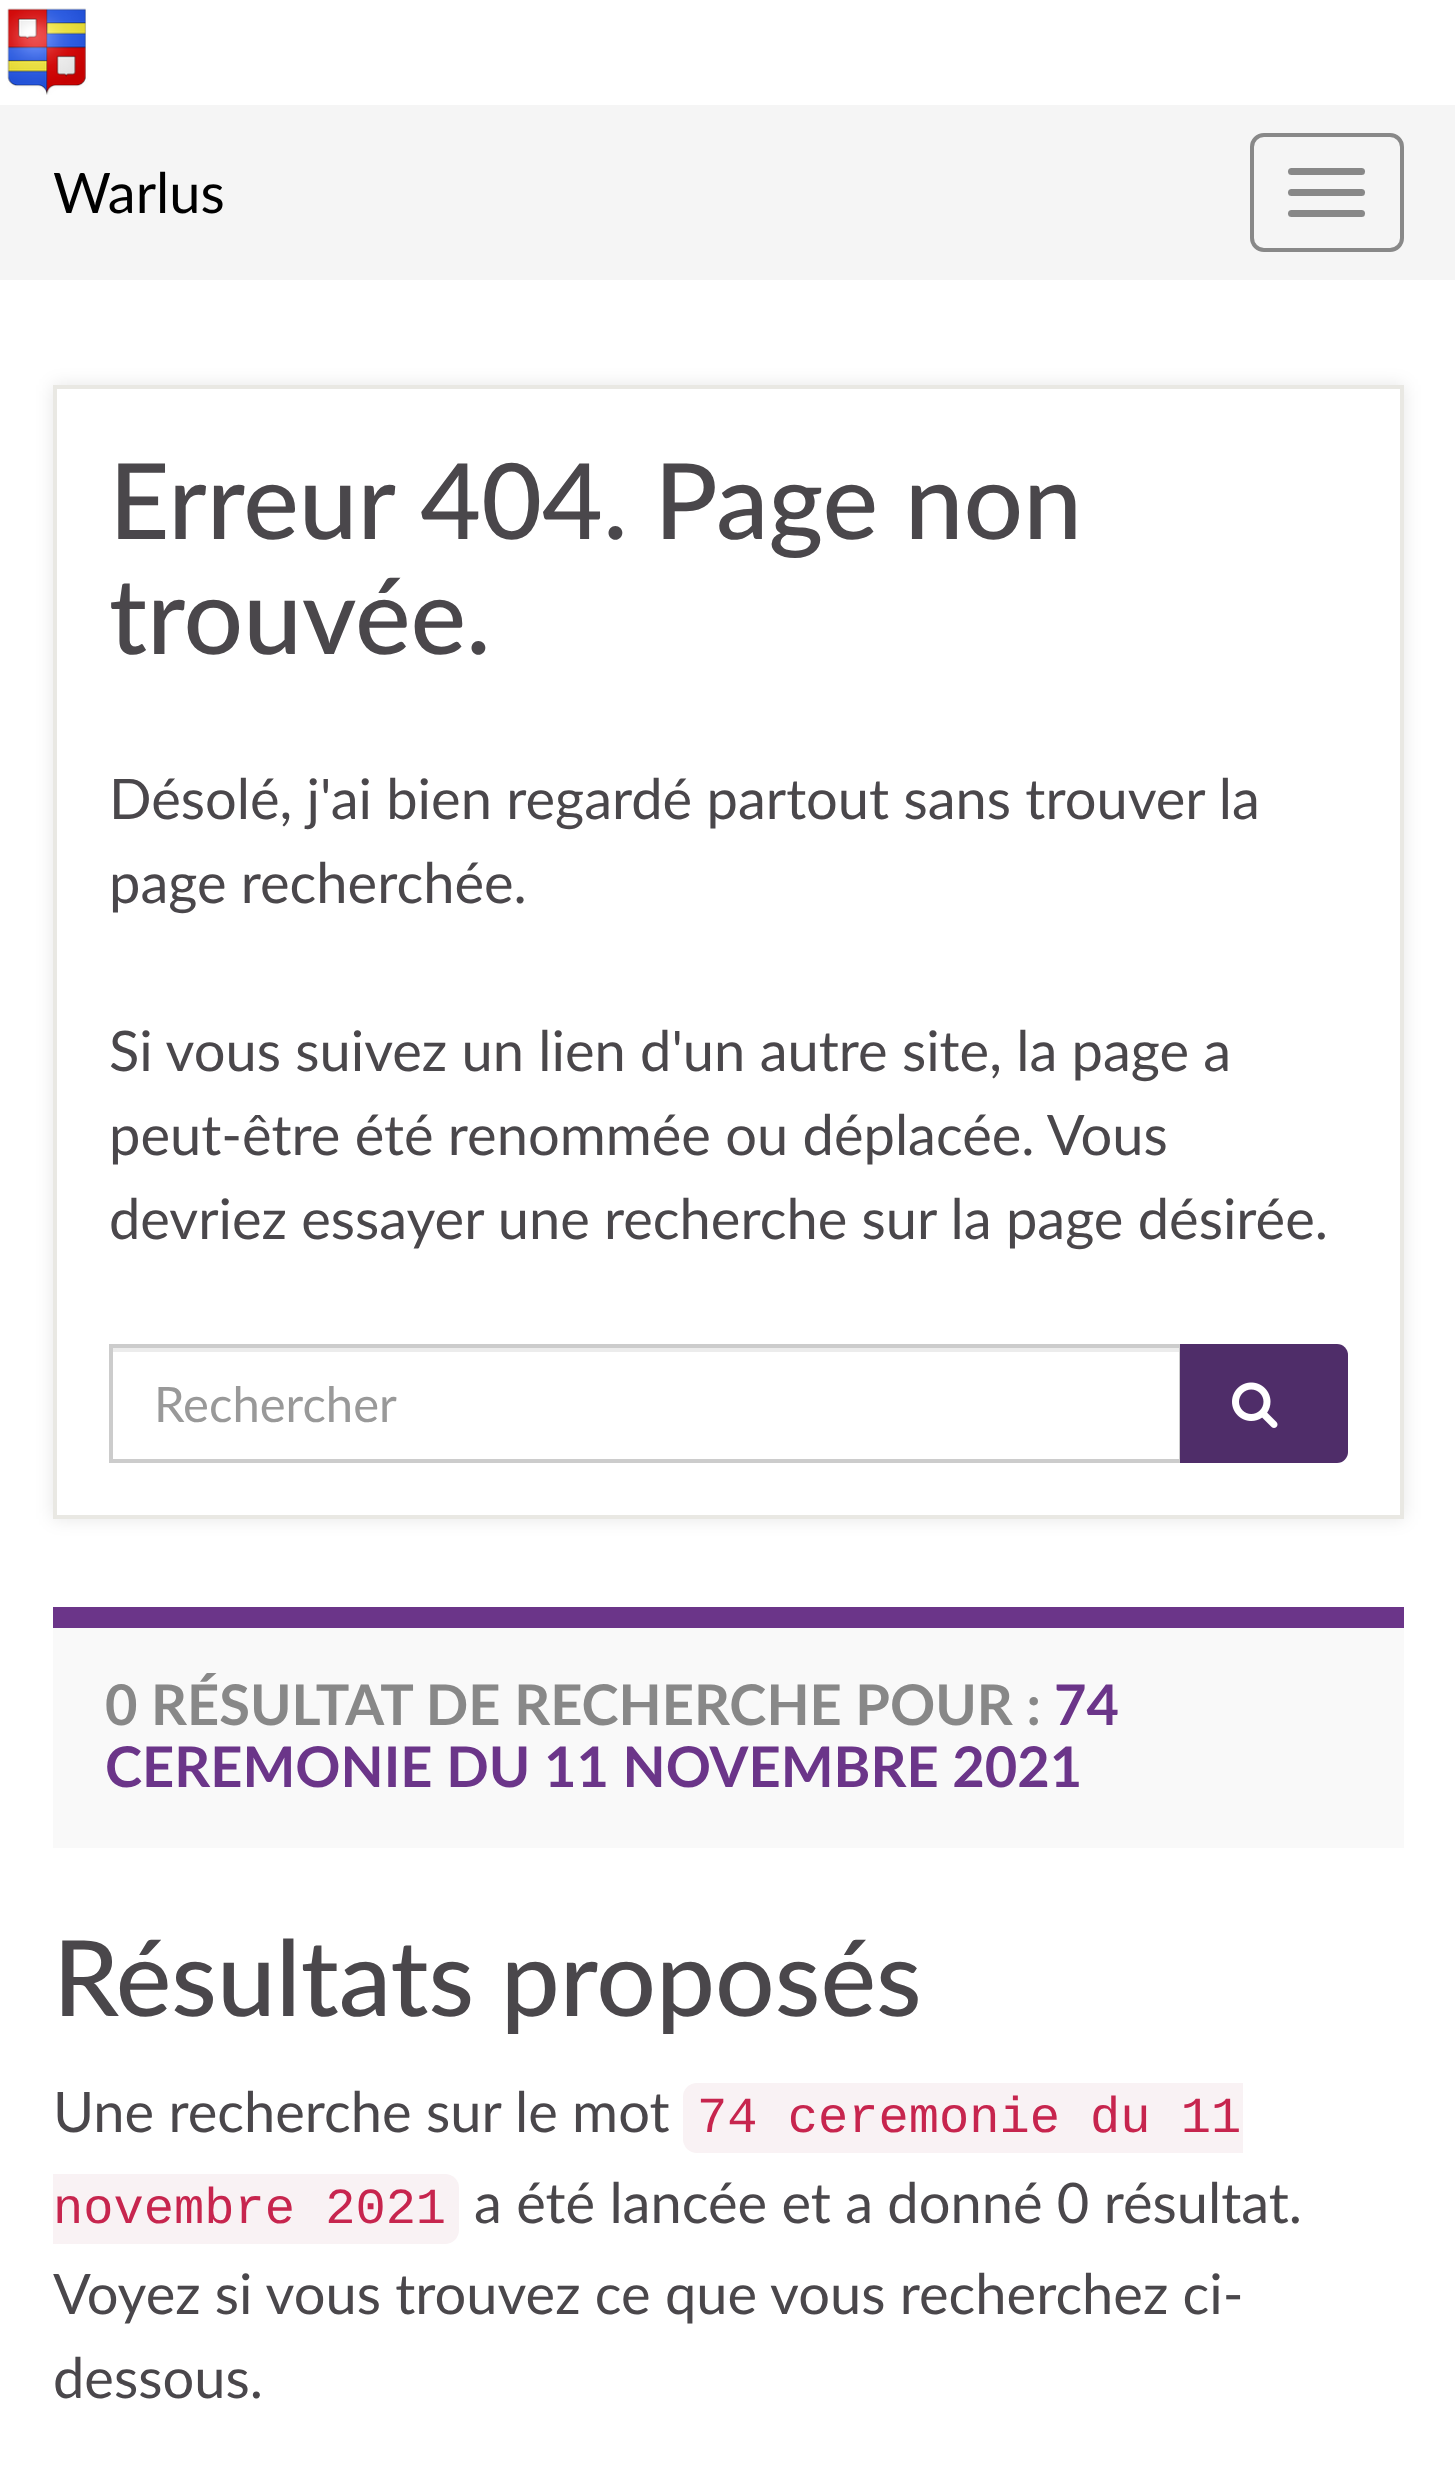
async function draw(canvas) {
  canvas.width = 1455
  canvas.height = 2480
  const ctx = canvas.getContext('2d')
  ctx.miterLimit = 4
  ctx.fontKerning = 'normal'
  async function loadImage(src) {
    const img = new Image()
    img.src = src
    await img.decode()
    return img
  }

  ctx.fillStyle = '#fff'
  ctx.fillRect(0, 0, 1455, 2480)
  ctx.drawImage(await loadImage('image0.png'), 7, 8, 81, 87)
  ctx.fillStyle = '#f5f5f5'
  ctx.fillRect(0, 105, 1455, 175)
  ctx.font = '56px Lato'
  ctx.fillStyle = '#000'
  ctx.fillText('Warlus', 53, 213)
  ctx.beginPath()
  ctx.roundRect(1252, 135, 150, 115, 12)
  ctx.strokeStyle = '#888'
  ctx.lineWidth = 4
  ctx.stroke()
  ctx.fillStyle = '#888'
  ctx.beginPath()
  ctx.roundRect(1288, 168, 77, 7, 3.5)
  ctx.fill()
  ctx.beginPath()
  ctx.roundRect(1288, 189, 77, 7, 3.5)
  ctx.fill()
  ctx.beginPath()
  ctx.roundRect(1288, 210, 77, 7, 3.5)
  ctx.fill()
  ctx.fillStyle = '#0000001a'
  ctx.filter = 'blur(9px)'
  ctx.beginPath()
  ctx.rect(53, 385, 1351, 1134)
  ctx.fill()
  ctx.filter = 'none'
  ctx.fillStyle = '#fff'
  ctx.beginPath()
  ctx.rect(55, 387, 1347, 1130)
  ctx.fill()
  ctx.strokeStyle = '#e9e8e3'
  ctx.stroke()
  ctx.font = '500 105px Lato'
  ctx.fillStyle = '#4a474b'
  ctx.fillText('Erreur 404. Page non', 109, 539)
  ctx.fillText('trouvée.', 109, 654)
  ctx.font = '56px Lato'
  ctx.fillText('Désolé, j\'ai bien regardé partout sans trouver la', 109, 819)
  ctx.fillText('page recherchée.', 109, 903)
  ctx.fillText('Si vous suivez un lien d\'un autre site, la page a', 109, 1071)
  ctx.fillText('peut-être été renommée ou déplacée. Vous', 109, 1155)
  ctx.fillText('devriez essayer une recherche sur la page désirée.', 109, 1239)
  ctx.fillStyle = '#ececec'
  ctx.fillRect(112, 1348, 1068, 4)
  ctx.strokeStyle = '#ccc'
  ctx.strokeRect(111, 1346, 1070, 115)
  ctx.font = '49px Lato'
  ctx.fillStyle = '#999'
  ctx.fillText('Rechercher', 154, 1422)
  ctx.fillStyle = '#4f2d69'
  ctx.beginPath()
  ctx.roundRect(1180, 1344, 168, 119, [0, 11, 11, 0])
  ctx.fill()
  ctx.drawImage(await loadImage('image1.png'), 1232, 1382, 46, 46)
  ctx.fillStyle = '#f9f9f9'
  ctx.fillRect(53, 1628, 1351, 220)
  ctx.fillStyle = '#6b3589'
  ctx.fillRect(53, 1607, 1351, 21)
  ctx.font = 'bold 56px Lato'
  ctx.fillStyle = '#888'
  ctx.fillText('0 RÉSULTAT DE RECHERCHE POUR :', 105, 1725)
  ctx.fillStyle = '#6b3589'
  ctx.fillText('74', 1054, 1725)
  ctx.fillText('CEREMONIE DU 11 NOVEMBRE 2021', 105, 1787)
  ctx.font = '500 105px Lato'
  ctx.fillStyle = '#4a474b'
  ctx.fillText('Résultats proposés', 53, 2016)
  ctx.font = '56px Lato'
  ctx.fillText('Une recherche sur le mot', 53, 2132)
  ctx.fillStyle = '#f9f2f4'
  ctx.beginPath()
  ctx.roundRect(683, 2083, 560, 70, [14, 0, 0, 14])
  ctx.fill()
  ctx.font = '50.4px Liberation Mono'
  ctx.fillStyle = '#c7254e'
  ctx.fillText('74 ceremonie du 11', 697, 2132)
  ctx.fillStyle = '#f9f2f4'
  ctx.beginPath()
  ctx.roundRect(53, 2174, 406, 70, [0, 14, 14, 0])
  ctx.fill()
  ctx.fillStyle = '#c7254e'
  ctx.fillText('novembre 2021', 53, 2223)
  ctx.font = '56px Lato'
  ctx.fillStyle = '#4a474b'
  ctx.fillText('a été lancée et a donné 0 résultat.', 474, 2223)
  ctx.fillText('Voyez si vous trouvez ce que vous recherchez ci-', 53, 2314)
  ctx.fillText('dessous.', 53, 2398)
}

draw(document.querySelector('canvas'))
